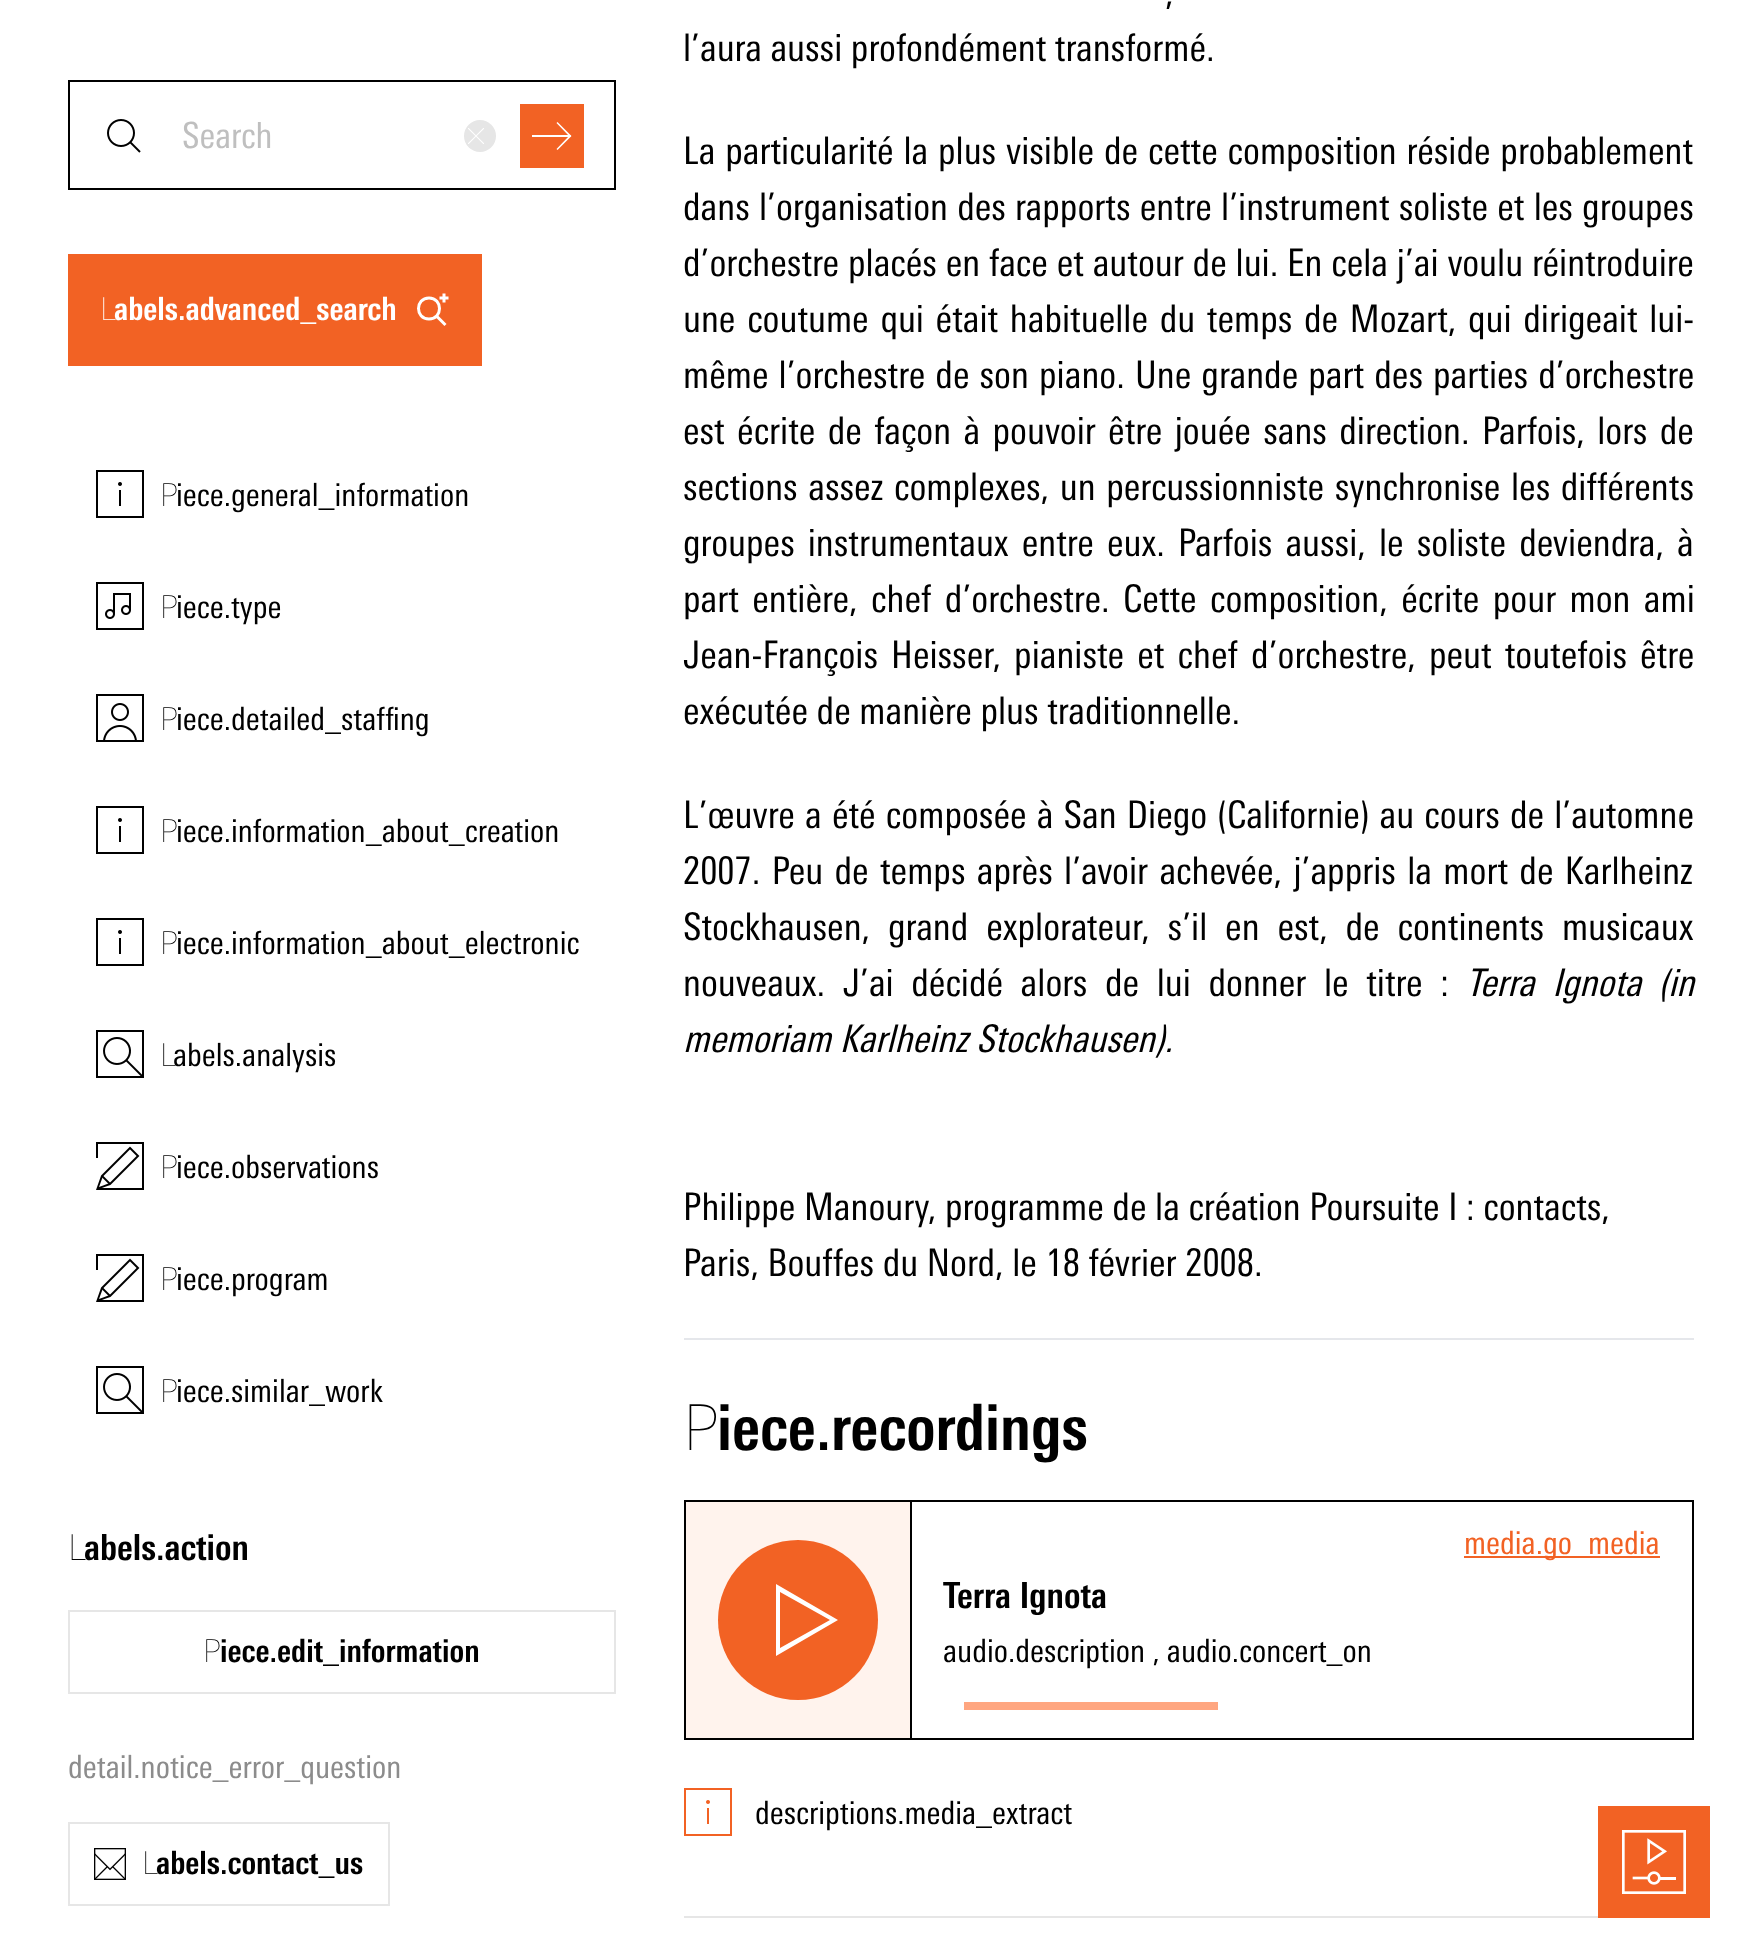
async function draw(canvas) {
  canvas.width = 1742
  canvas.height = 1949
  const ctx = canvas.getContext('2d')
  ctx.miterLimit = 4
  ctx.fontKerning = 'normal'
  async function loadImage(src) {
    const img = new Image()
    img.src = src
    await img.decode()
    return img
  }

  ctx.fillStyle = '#fff'
  ctx.fillRect(0, 0, 1742, 1949)
  ctx.strokeStyle = '#000'
  ctx.lineWidth = 2
  ctx.strokeRect(69, 81, 546, 108)
  ctx.drawImage(await loadImage('image0.png'), 107, 119, 34, 34)
  ctx.font = '36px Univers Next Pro'
  ctx.fillStyle = '#bfbfbf'
  ctx.fillText('Search', 182, 148)
  ctx.fillStyle = '#e6e6e6'
  ctx.beginPath()
  ctx.arc(480, 136, 16, 0, 2 * Math.PI)
  ctx.fill()
  ctx.drawImage(await loadImage('image1.png'), 468, 128, 16, 16)
  ctx.fillStyle = '#f26224'
  ctx.fillRect(520, 104, 64, 64)
  ctx.fillStyle = '#fff'
  ctx.beginPath()
  ctx.moveTo(569, 136)
  ctx.lineTo(556.5, 123)
  ctx.lineTo(557.5, 122)
  ctx.lineTo(571.5, 136)
  ctx.lineTo(557.5, 150)
  ctx.lineTo(556.5, 149)
  ctx.closePath()
  ctx.fill('evenodd')
  ctx.fillRect(532, 135, 39, 2)
  ctx.fillStyle = '#f26224'
  ctx.fillRect(68, 254, 414, 112)
  ctx.font = '100 32px Noto Sans'
  ctx.fillStyle = '#fff'
  ctx.fillText('L', 100, 320)
  ctx.font = 'bold 32px Univers Next Pro'
  ctx.fillText('abels.advanced_search', 114, 320)
  ctx.beginPath()
  ctx.moveTo(436.5, 316)
  ctx.lineTo(445.5, 325)
  ctx.closePath()
  ctx.moveTo(429, 319)
  ctx.bezierCurveTo(443, 319, 443, 298, 429, 298)
  ctx.bezierCurveTo(415, 298, 415, 319, 429, 319)
  ctx.closePath()
  ctx.moveTo(444, 293.5)
  ctx.lineTo(444, 302.5)
  ctx.moveTo(439.5, 298)
  ctx.lineTo(448.5, 298)
  ctx.strokeStyle = '#fff'
  ctx.lineWidth = 3
  ctx.stroke()
  ctx.drawImage(await loadImage('image2.png'), 96, 470, 48, 48)
  ctx.font = '100 32px Noto Sans'
  ctx.fillStyle = '#000'
  ctx.fillText('P', 160, 506)
  ctx.font = '32px Univers Next Pro'
  ctx.fillText('iece.general_information', 176, 506)
  ctx.drawImage(await loadImage('image3.png'), 96, 582, 48, 48)
  ctx.font = '100 32px Noto Sans'
  ctx.fillText('P', 160, 618)
  ctx.font = '32px Univers Next Pro'
  ctx.fillText('iece.type', 176, 618)
  ctx.drawImage(await loadImage('image4.png'), 96, 694, 48, 48)
  ctx.font = '100 32px Noto Sans'
  ctx.fillText('P', 160, 730)
  ctx.font = '32px Univers Next Pro'
  ctx.fillText('iece.detailed_staffing', 176, 730)
  ctx.drawImage(await loadImage('image2.png'), 96, 806, 48, 48)
  ctx.font = '100 32px Noto Sans'
  ctx.fillText('P', 160, 842)
  ctx.font = '32px Univers Next Pro'
  ctx.fillText('iece.information_about_creation', 176, 842)
  ctx.drawImage(await loadImage('image2.png'), 96, 918, 48, 48)
  ctx.font = '100 32px Noto Sans'
  ctx.fillText('P', 160, 954)
  ctx.font = '32px Univers Next Pro'
  ctx.fillText('iece.information_about_electronic', 176, 954)
  ctx.drawImage(await loadImage('image5.png'), 96, 1030, 48, 48)
  ctx.font = '100 32px Noto Sans'
  ctx.fillText('L', 160, 1066)
  ctx.font = '32px Univers Next Pro'
  ctx.fillText('abels.analysis', 173, 1066)
  ctx.drawImage(await loadImage('image6.png'), 96, 1142, 48, 48)
  ctx.font = '100 32px Noto Sans'
  ctx.fillText('P', 160, 1178)
  ctx.font = '32px Univers Next Pro'
  ctx.fillText('iece.observations', 176, 1178)
  ctx.drawImage(await loadImage('image6.png'), 96, 1254, 48, 48)
  ctx.font = '100 32px Noto Sans'
  ctx.fillText('P', 160, 1290)
  ctx.font = '32px Univers Next Pro'
  ctx.fillText('iece.program', 176, 1290)
  ctx.drawImage(await loadImage('image5.png'), 96, 1366, 48, 48)
  ctx.font = '100 32px Noto Sans'
  ctx.fillText('P', 160, 1402)
  ctx.font = '32px Univers Next Pro'
  ctx.fillText('iece.similar_work', 176, 1402)
  ctx.font = '100 36px Noto Sans'
  ctx.fillText('L', 68, 1560)
  ctx.font = 'bold 36px Univers Next Pro'
  ctx.fillText('abels.action', 84, 1560)
  ctx.strokeStyle = '#e6e6e6'
  ctx.lineWidth = 2
  ctx.strokeRect(69, 1611, 546, 82)
  ctx.font = '100 32px Noto Sans'
  ctx.fillText('P', 203, 1662)
  ctx.font = 'bold 32px Univers Next Pro'
  ctx.fillText('iece.edit_information', 220, 1662)
  ctx.font = '32px Univers Next Pro'
  ctx.fillStyle = '#8c8c8c'
  ctx.fillText('detail.notice_error_question', 68, 1778)
  ctx.strokeRect(69, 1823, 320, 82)
  ctx.drawImage(await loadImage('image7.png'), 94, 1848, 32, 32)
  ctx.font = '100 32px Noto Sans'
  ctx.fillStyle = '#000'
  ctx.fillText('L', 142, 1874)
  ctx.font = 'bold 32px Univers Next Pro'
  ctx.fillText('abels.contact_us', 156, 1874)
  ctx.wordSpacing = '3px'
  ctx.font = '38px Univers Next Pro'
  ctx.fillText(',', 1165, 5)
  ctx.wordSpacing = '0px'
  ctx.fillText('l’aura aussi profondément transformé.', 683, 61)
  ctx.wordSpacing = '1.25px'
  ctx.fillText('La particularité la plus visible de cette composition réside probablement', 683, 164)
  ctx.wordSpacing = '0.6px'
  ctx.fillText('dans l’organisation des rapports entre l’instrument soliste et les groupes', 683, 220)
  ctx.wordSpacing = '0.25px'
  ctx.fillText('d’orchestre placés en face et autour de lui. En cela j’ai voulu réintroduire', 683, 276)
  ctx.wordSpacing = '3.1px'
  ctx.fillText('une coutume qui était habituelle du temps de Mozart, qui dirigeait lui-', 683, 332)
  ctx.wordSpacing = '1.5px'
  ctx.fillText('même l’orchestre de son piano. Une grande part des parties d’orchestre', 683, 388)
  ctx.wordSpacing = '3.75px'
  ctx.fillText('est écrite de façon à pouvoir être jouée sans direction. Parfois, lors de', 683, 444)
  ctx.wordSpacing = '2px'
  ctx.fillText('sections assez complexes, un percussionniste synchronise les différents', 683, 500)
  ctx.wordSpacing = '4.5px'
  ctx.fillText('groupes instrumentaux entre eux. Parfois aussi, le soliste deviendra, à', 683, 556)
  ctx.wordSpacing = '4.75px'
  ctx.fillText('part entière, chef d’orchestre. Cette composition, écrite pour mon ami', 683, 612)
  ctx.wordSpacing = '4.5px'
  ctx.fillText('Jean-François Heisser, pianiste et chef d’orchestre, peut toutefois être', 683, 668)
  ctx.wordSpacing = '0px'
  ctx.fillText('exécutée de manière plus traditionnelle.', 683, 724)
  ctx.wordSpacing = '1.6px'
  ctx.fillText('L’œuvre a été composée à San Diego (Californie) au cours de l’automne', 683, 828)
  ctx.wordSpacing = '2.75px'
  ctx.fillText('2007. Peu de temps après l’avoir achevée, j’appris la mort de Karlheinz', 683, 884)
  ctx.wordSpacing = '9.25px'
  ctx.fillText('Stockhausen, grand explorateur, s’il en est, de continents musicaux', 683, 940)
  ctx.wordSpacing = '9px'
  ctx.fillText('nouveaux. J’ai décidé alors de lui donner le titre :', 683, 996)
  ctx.font = 'italic 38px Univers Next Pro'
  ctx.fillText('Terra Ignota (in', 1466, 996)
  ctx.wordSpacing = '0px'
  ctx.fillText('memoriam Karlheinz Stockhausen).', 683, 1052)
  ctx.font = '38px Univers Next Pro'
  ctx.fillText('Philippe Manoury, programme de la création Poursuite I : contacts,', 683, 1220)
  ctx.fillText('Paris, Bouffes du Nord, le 18 février 2008.', 683, 1276)
  ctx.fillStyle = '#e5e7eb'
  ctx.fillRect(684, 1338, 1010, 2)
  ctx.font = '100 64px Noto Sans'
  ctx.fillStyle = '#000'
  ctx.fillText('P', 683, 1450)
  ctx.font = 'bold 64px Univers Next Pro'
  ctx.fillText('iece.recordings', 717, 1450)
  ctx.strokeStyle = '#000'
  ctx.strokeRect(685, 1501, 1008, 238)
  ctx.fillStyle = '#fff3ed'
  ctx.fillRect(686, 1502, 224, 236)
  ctx.fillStyle = '#000'
  ctx.fillRect(910, 1502, 2, 236)
  ctx.fillStyle = '#f26224'
  ctx.beginPath()
  ctx.arc(798, 1620, 80, 0, 2 * Math.PI)
  ctx.fill()
  ctx.fillStyle = '#fff'
  ctx.beginPath()
  ctx.moveTo(776, 1584)
  ctx.lineTo(838, 1620)
  ctx.lineTo(776, 1656)
  ctx.closePath()
  ctx.moveTo(780, 1592)
  ctx.lineTo(780, 1648)
  ctx.lineTo(830, 1620)
  ctx.closePath()
  ctx.fill('evenodd')
  ctx.fillStyle = '#f26224'
  ctx.fillRect(1464, 1556, 196, 2)
  ctx.font = '32px Univers Next Pro'
  ctx.fillText('media.go_media', 1464, 1554)
  ctx.font = 'bold 36px Univers Next Pro'
  ctx.fillStyle = '#000'
  ctx.fillText('Terra Ignota', 943, 1608)
  ctx.font = '32px Univers Next Pro'
  ctx.fillText('audio.description , audio.concert_on', 943, 1662)
  ctx.fillStyle = '#ffa680'
  ctx.fillRect(960, 1702, 258, 8)
  ctx.fillStyle = '#fff'
  ctx.fillRect(960, 1702, 4, 8)
  ctx.drawImage(await loadImage('image8.png'), 684, 1788, 48, 48)
  ctx.fillStyle = '#000'
  ctx.fillText('descriptions.media_extract', 755, 1824)
  ctx.fillStyle = '#e6e6e6'
  ctx.fillRect(684, 1916, 914, 2)
  ctx.fillStyle = '#f26224'
  ctx.fillRect(1598, 1806, 112, 112)
  ctx.drawImage(await loadImage('image9.png'), 1622, 1830, 64, 64)
}

draw(document.querySelector('canvas'))
